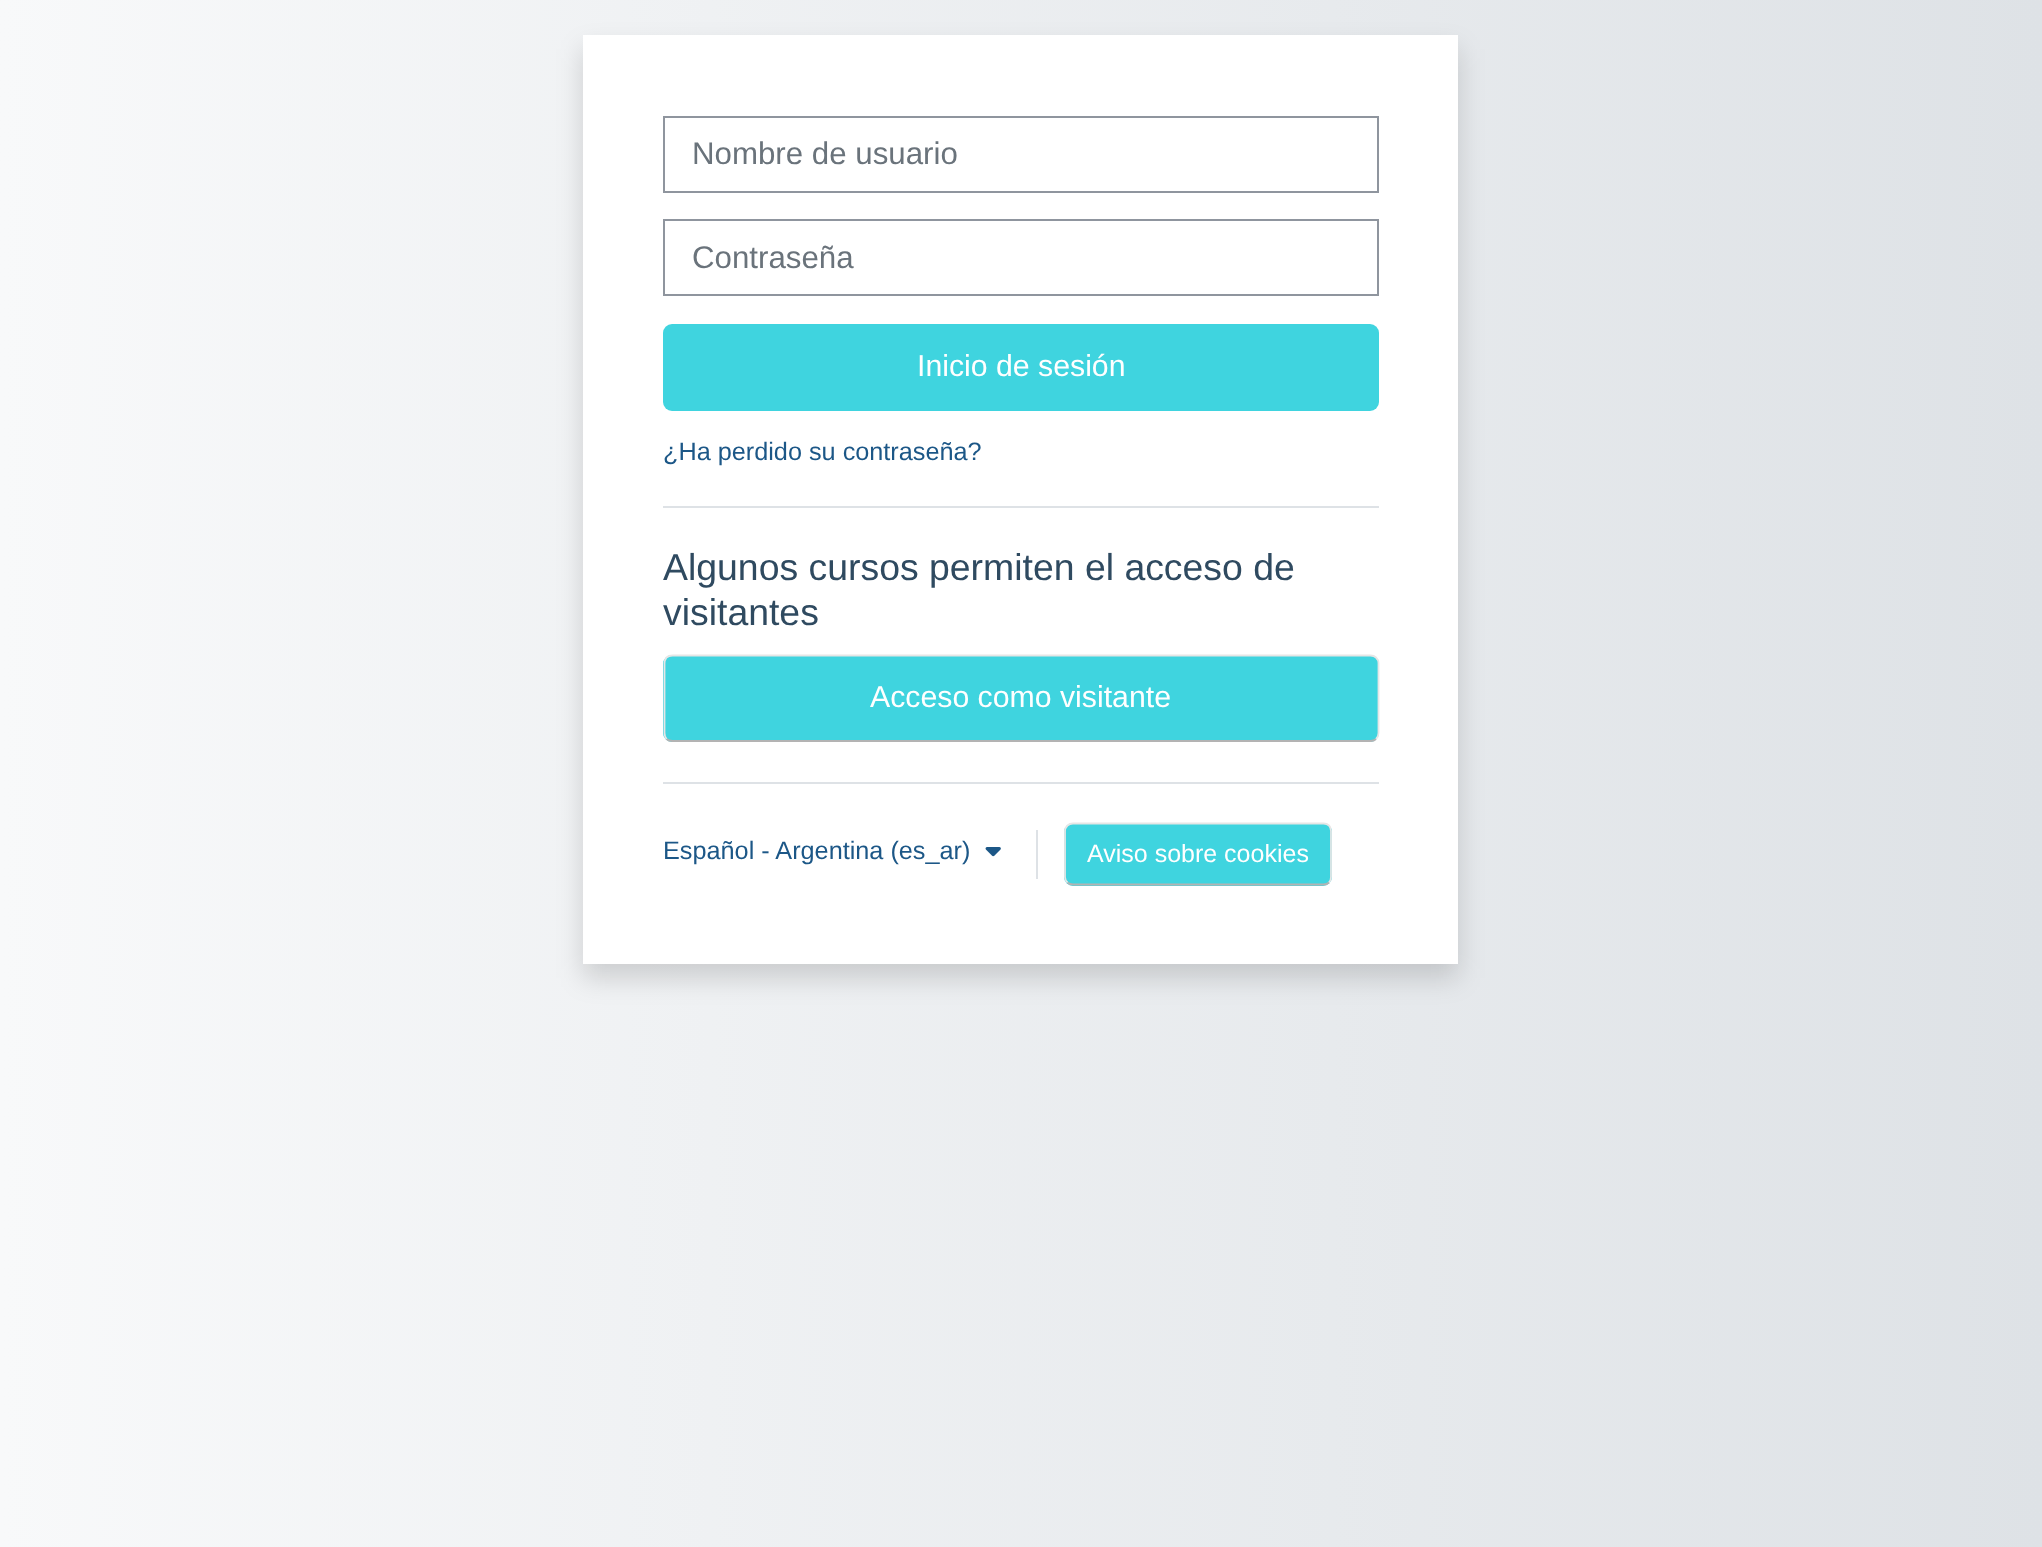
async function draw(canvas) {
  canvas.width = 2042
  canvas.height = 1547
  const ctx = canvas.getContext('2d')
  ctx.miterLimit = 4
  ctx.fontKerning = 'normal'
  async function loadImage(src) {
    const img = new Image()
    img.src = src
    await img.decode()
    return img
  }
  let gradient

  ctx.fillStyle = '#fff'
  ctx.fillRect(0, 0, 2042, 1547)
  gradient = ctx.createLinearGradient(0, 774, 2042, 773)
  gradient.addColorStop(0, '#f8f9fa')
  gradient.addColorStop(1, '#dee2e6')
  ctx.fillStyle = gradient
  ctx.fillRect(0, 0, 2042, 1547)
  ctx.fillStyle = '#00000026'
  ctx.filter = 'blur(13.5px)'
  ctx.beginPath()
  ctx.rect(583, 49, 875, 929)
  ctx.fill()
  ctx.filter = 'none'
  ctx.fillStyle = '#fff'
  ctx.fillRect(583, 35, 875, 929)
  ctx.strokeStyle = '#8f959e'
  ctx.lineWidth = 2
  ctx.strokeRect(664, 117, 714, 75)
  ctx.font = '31.25px Liberation Sans'
  ctx.fillStyle = '#6a737b'
  ctx.fillText('Nombre de usuario', 692, 164)
  ctx.strokeRect(664, 220, 714, 75)
  ctx.fillText('Contraseña', 692, 268)
  ctx.fillStyle = '#3fd4df'
  ctx.beginPath()
  ctx.roundRect(663, 324, 716, 87, 9)
  ctx.fill()
  ctx.font = '30.25px Liberation Sans'
  ctx.fillStyle = '#fff'
  ctx.fillText('Inicio de sesión', 917, 376)
  ctx.font = '25.25px Liberation Sans'
  ctx.fillStyle = '#1c5787'
  ctx.fillText('¿Ha perdido su contraseña?', 663, 460)
  ctx.fillStyle = '#dee2e6'
  ctx.fillRect(663, 506, 716, 2)
  ctx.font = '37.4px Liberation Sans'
  ctx.fillStyle = '#2f4a60'
  ctx.fillText('Algunos cursos permiten el acceso de', 663, 580)
  ctx.fillText('visitantes', 663, 625)
  ctx.fillStyle = '#3fd4df'
  ctx.beginPath()
  ctx.roundRect(663, 655, 716, 87, 9)
  ctx.fill()
  ctx.beginPath()
  ctx.moveTo(1376, 739)
  ctx.bezierCurveTo(1374.5, 740.5, 1372.5, 741, 1370.5, 741)
  ctx.lineTo(672.5, 741)
  ctx.bezierCurveTo(670, 741, 668, 740.5, 666.5, 739)
  ctx.strokeStyle = '#b3b3b3'
  ctx.lineWidth = 1.8
  ctx.stroke()
  ctx.beginPath()
  ctx.moveTo(666.5, 739)
  ctx.bezierCurveTo(665.5, 737.5, 664.5, 735.5, 664.5, 733)
  ctx.lineTo(664.5, 663)
  ctx.bezierCurveTo(664.5, 661, 665.5, 659, 666.5, 657.5)
  ctx.bezierCurveTo(668, 656, 670, 655.5, 672.5, 655.5)
  ctx.lineTo(1370.5, 655.5)
  ctx.bezierCurveTo(1372.5, 655.5, 1374.5, 656, 1376, 657.5)
  ctx.bezierCurveTo(1377.5, 659, 1378.5, 661, 1378.5, 663)
  ctx.lineTo(1378.5, 733)
  ctx.bezierCurveTo(1378.5, 735.5, 1377.5, 737.5, 1376, 739)
  ctx.strokeStyle = '#e6e6e6'
  ctx.stroke()
  ctx.font = '30.25px Liberation Sans'
  ctx.fillStyle = '#fff'
  ctx.fillText('Acceso como visitante', 870, 707)
  ctx.fillStyle = '#dee2e6'
  ctx.fillRect(663, 782, 716, 2)
  ctx.font = '25.25px Liberation Sans'
  ctx.fillStyle = '#1c5787'
  ctx.fillText('Español - Argentina (es_ar)', 663, 859)
  ctx.drawImage(await loadImage('image0.png'), 985, 847, 16, 10)
  ctx.fillStyle = '#dee2e6'
  ctx.fillRect(1036, 830, 2, 49)
  ctx.fillStyle = '#3fd4df'
  ctx.beginPath()
  ctx.roundRect(1064, 823, 268, 63, 9)
  ctx.fill()
  ctx.beginPath()
  ctx.moveTo(1329, 882.5)
  ctx.bezierCurveTo(1327.5, 884, 1325.5, 884.5, 1323.5, 884.5)
  ctx.lineTo(1073, 884.5)
  ctx.bezierCurveTo(1071, 884.5, 1069, 884, 1067.5, 882.5)
  ctx.strokeStyle = '#b3b3b3'
  ctx.stroke()
  ctx.beginPath()
  ctx.moveTo(1067.5, 882.5)
  ctx.bezierCurveTo(1066, 881, 1065, 879, 1065, 877)
  ctx.lineTo(1065, 831)
  ctx.bezierCurveTo(1065, 829, 1066, 827, 1067.5, 825.5)
  ctx.bezierCurveTo(1069, 824, 1071, 823.5, 1073, 823.5)
  ctx.lineTo(1323.5, 823.5)
  ctx.bezierCurveTo(1325.5, 823.5, 1327.5, 824, 1329, 825.5)
  ctx.bezierCurveTo(1330.5, 827, 1331, 829, 1331, 831)
  ctx.lineTo(1331, 877)
  ctx.bezierCurveTo(1331, 879, 1330.5, 881, 1329, 882.5)
  ctx.strokeStyle = '#e6e6e6'
  ctx.stroke()
  ctx.font = '25px Liberation Sans'
  ctx.fillStyle = '#fff'
  ctx.fillText('Aviso sobre cookies', 1087, 862)
}

draw(document.querySelector('canvas'))
